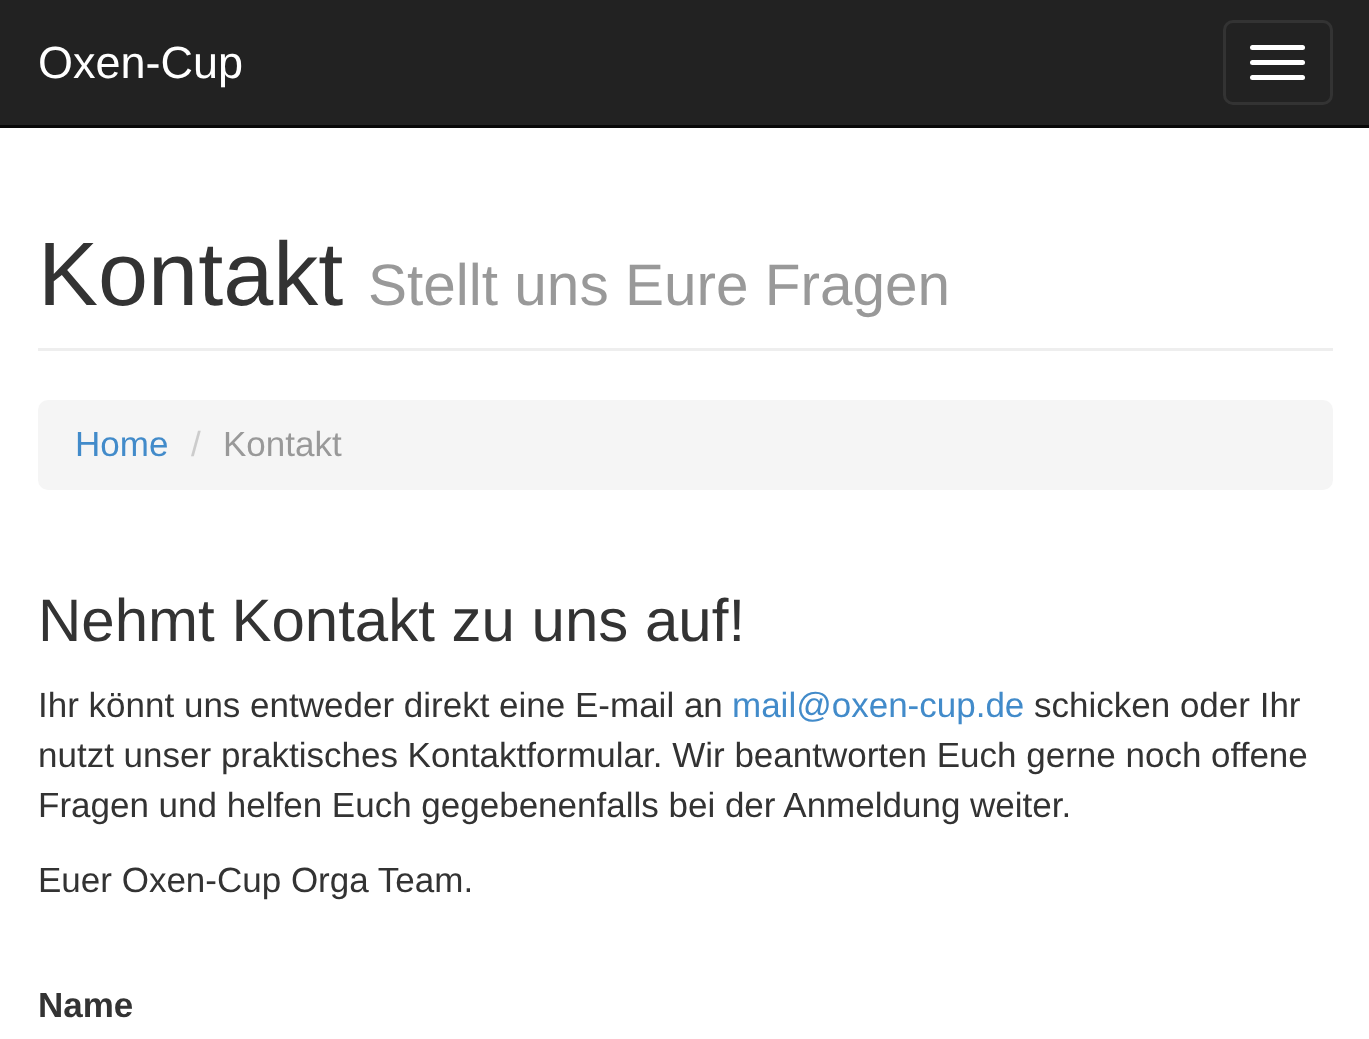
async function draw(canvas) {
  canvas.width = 1369
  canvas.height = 1039
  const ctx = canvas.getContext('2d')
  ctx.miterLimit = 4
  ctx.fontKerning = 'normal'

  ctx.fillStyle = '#fff'
  ctx.fillRect(0, 0, 1369, 1039)
  ctx.fillStyle = '#222'
  ctx.fillRect(0, 0, 1369, 125)
  ctx.fillStyle = '#080808'
  ctx.fillRect(0, 125, 1369, 3)
  ctx.font = '45px Liberation Sans'
  ctx.fillStyle = '#fff'
  ctx.fillText('Oxen-Cup', 38, 78)
  ctx.beginPath()
  ctx.roundRect(1224.5, 21.5, 107, 82, 8.5)
  ctx.strokeStyle = '#333'
  ctx.lineWidth = 3
  ctx.stroke()
  ctx.beginPath()
  ctx.roundRect(1250, 45, 55, 5, 2.5)
  ctx.fill()
  ctx.beginPath()
  ctx.roundRect(1250, 60, 55, 5, 2.5)
  ctx.fill()
  ctx.beginPath()
  ctx.roundRect(1250, 75, 55, 5, 2.5)
  ctx.fill()
  ctx.fillStyle = '#eee'
  ctx.fillRect(38, 348, 1295, 3)
  ctx.font = '90px Liberation Sans'
  ctx.fillStyle = '#333'
  ctx.fillText('Kontakt', 38, 305)
  ctx.font = '58.5px Liberation Sans'
  ctx.fillStyle = '#999'
  ctx.fillText('Stellt uns Eure Fragen', 368, 305)
  ctx.fillStyle = '#f5f5f5'
  ctx.beginPath()
  ctx.roundRect(38, 400, 1295, 90, 10)
  ctx.fill()
  ctx.font = '35px Liberation Sans'
  ctx.fillStyle = '#428bca'
  ctx.fillText('Home', 75, 456)
  ctx.fillStyle = '#ccc'
  ctx.fillText('/', 191, 456)
  ctx.fillStyle = '#999'
  ctx.fillText('Kontakt', 223, 456)
  ctx.font = '60px Liberation Sans'
  ctx.fillStyle = '#333'
  ctx.fillText('Nehmt Kontakt zu uns auf!', 38, 641)
  ctx.font = '35px Liberation Sans'
  ctx.fillText('Ihr könnt uns entweder direkt eine E-mail an', 38, 717)
  ctx.fillStyle = '#428bca'
  ctx.fillText('mail@oxen-cup.de', 732, 717)
  ctx.fillStyle = '#333'
  ctx.fillText('schicken oder Ihr', 1034, 717)
  ctx.fillText('nutzt unser praktisches Kontaktformular. Wir beantworten Euch gerne noch offene', 38, 767)
  ctx.fillText('Fragen und helfen Euch gegebenenfalls bei der Anmeldung weiter.', 38, 817)
  ctx.fillText('Euer Oxen-Cup Orga Team.', 38, 892)
  ctx.font = 'bold 35px Liberation Sans'
  ctx.fillText('Name', 38, 1017)
}

draw(document.querySelector('canvas'))
